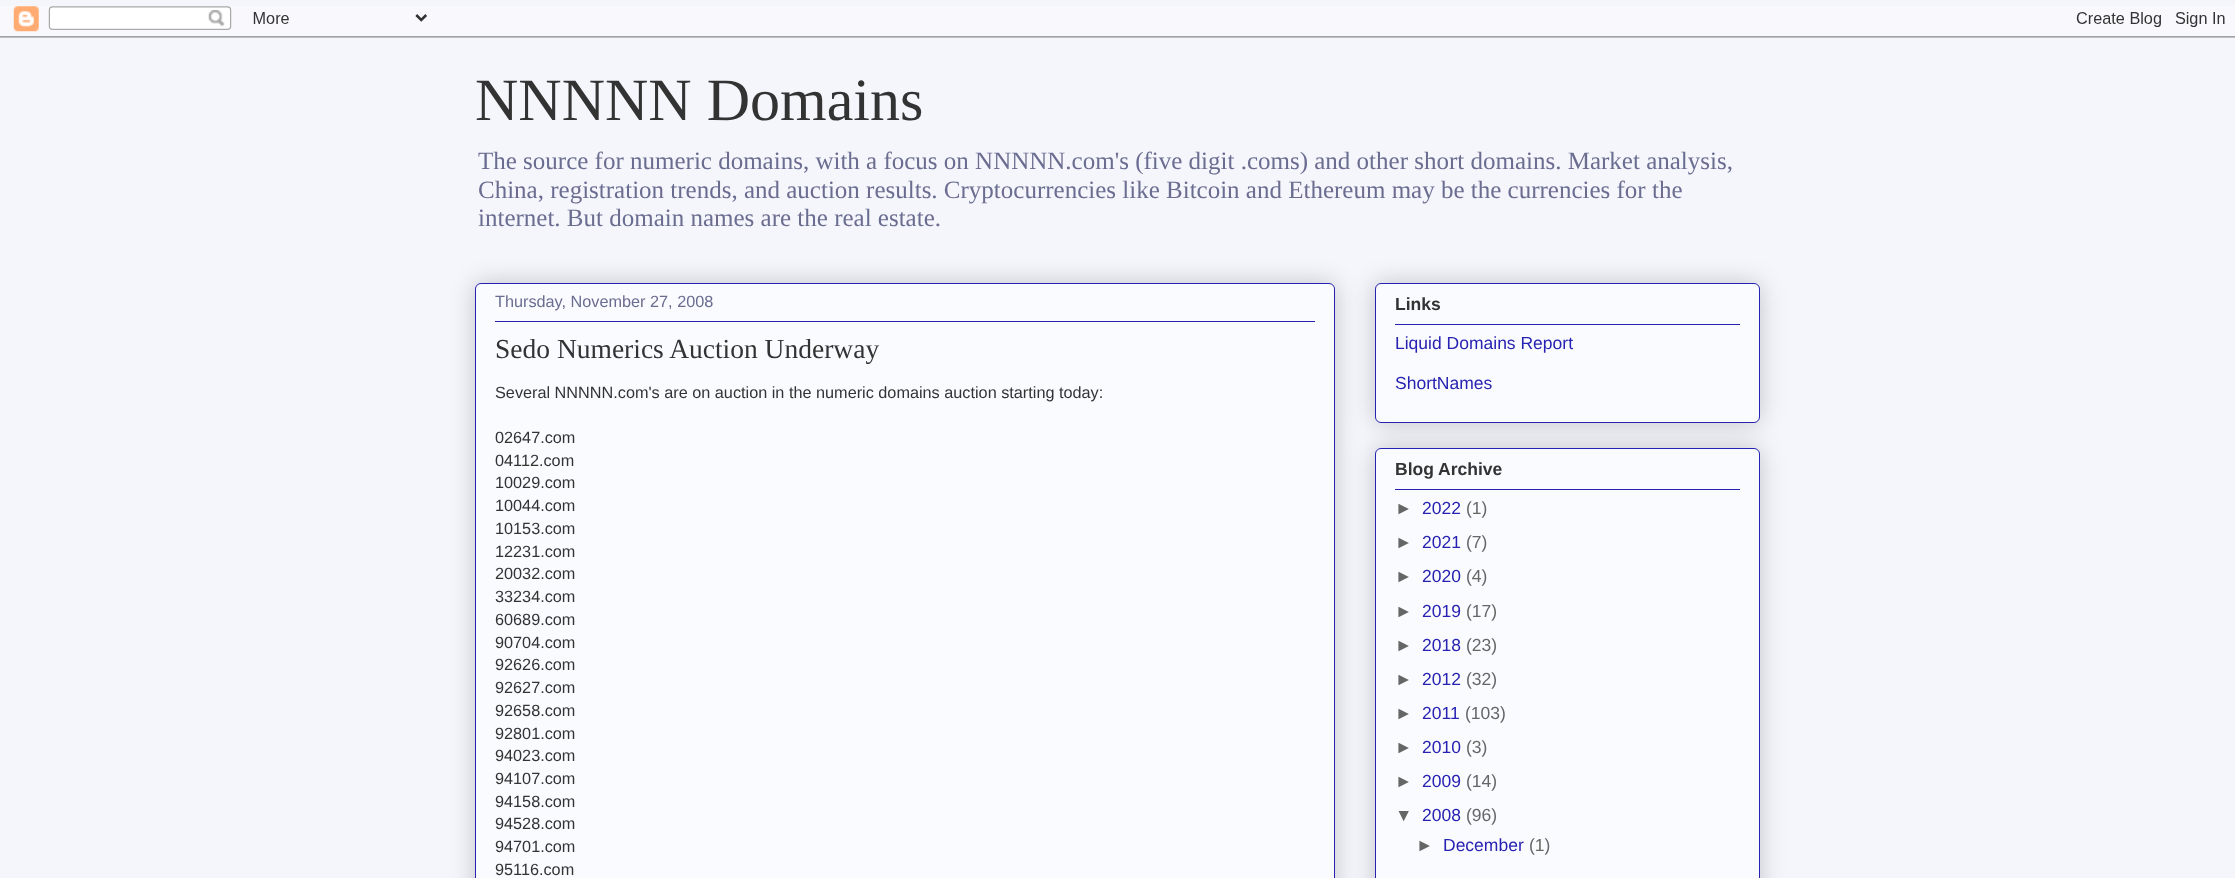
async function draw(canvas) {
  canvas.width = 2235
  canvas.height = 878
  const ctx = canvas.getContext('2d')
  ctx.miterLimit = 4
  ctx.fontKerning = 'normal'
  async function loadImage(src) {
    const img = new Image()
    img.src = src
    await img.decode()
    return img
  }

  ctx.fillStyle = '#f5f6fc'
  ctx.fillRect(0, 0, 2235, 878)
  ctx.drawImage(await loadImage('image0.png'), 0, 6, 2235, 32)
  ctx.font = '60px Liberation Serif'
  ctx.fillStyle = '#333'
  ctx.fillText('NNNNN Domains', 475, 120)
  ctx.font = '25px Liberation Serif'
  ctx.fillStyle = '#6a6d90'
  ctx.fillText('The source for numeric domains, with a focus on NNNNN.com\'s (five digit .coms) and other short domains. Market analysis,', 478, 169)
  ctx.fillText('China, registration trends, and auction results. Cryptocurrencies like Bitcoin and Ethereum may be the currencies for the', 478, 198)
  ctx.fillText('internet. But domain names are the real estate.', 478, 226)
  ctx.fillStyle = '#00000033'
  ctx.filter = 'blur(12.5px)'
  ctx.beginPath()
  ctx.roundRect(475, 283, 860, 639, 6)
  ctx.fill()
  ctx.filter = 'none'
  ctx.fillStyle = '#fafbfe'
  ctx.beginPath()
  ctx.roundRect(475.5, 283.5, 859, 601, 5.5)
  ctx.fill()
  ctx.strokeStyle = '#2722b1'
  ctx.stroke()
  ctx.font = '16.25px Liberation Sans'
  ctx.fillStyle = '#6a6d90'
  ctx.fillText('Thursday, November 27, 2008', 495, 307)
  ctx.fillStyle = '#2722b1'
  ctx.fillRect(495, 321, 820, 1)
  ctx.font = '27.5px Liberation Serif'
  ctx.fillStyle = '#333'
  ctx.fillText('Sedo Numerics Auction Underway', 495, 358)
  ctx.font = '16.25px Liberation Sans'
  ctx.fillText('Several NNNNN.com\'s are on auction in the numeric domains auction starting today:', 495, 398)
  ctx.fillText('02647.com', 495, 443)
  ctx.fillText('04112.com', 495, 466)
  ctx.fillText('10029.com', 495, 488)
  ctx.fillText('10044.com', 495, 511)
  ctx.fillText('10153.com', 495, 534)
  ctx.fillText('12231.com', 495, 557)
  ctx.fillText('20032.com', 495, 579)
  ctx.fillText('33234.com', 495, 602)
  ctx.fillText('60689.com', 495, 625)
  ctx.fillText('90704.com', 495, 648)
  ctx.fillText('92626.com', 495, 670)
  ctx.fillText('92627.com', 495, 693)
  ctx.fillText('92658.com', 495, 716)
  ctx.fillText('92801.com', 495, 739)
  ctx.fillText('94023.com', 495, 761)
  ctx.fillText('94107.com', 495, 784)
  ctx.fillText('94158.com', 495, 807)
  ctx.fillText('94528.com', 495, 829)
  ctx.fillText('94701.com', 495, 852)
  ctx.fillText('95116.com', 495, 875)
  ctx.fillStyle = '#00000033'
  ctx.filter = 'blur(12.5px)'
  ctx.beginPath()
  ctx.roundRect(1375, 283, 385, 140, 6)
  ctx.fill()
  ctx.filter = 'none'
  ctx.fillStyle = '#fafbfe'
  ctx.beginPath()
  ctx.roundRect(1375.5, 283.5, 384, 139, 5.5)
  ctx.fill()
  ctx.stroke()
  ctx.font = 'bold 17.5px Liberation Sans'
  ctx.fillStyle = '#333'
  ctx.fillText('Links', 1395, 310)
  ctx.fillStyle = '#2722b1'
  ctx.fillRect(1395, 324, 345, 1)
  ctx.font = '17.5px Liberation Sans'
  ctx.fillText('Liquid Domains Report', 1395, 349)
  ctx.fillText('ShortNames', 1395, 389)
  ctx.fillStyle = '#00000033'
  ctx.filter = 'blur(12.5px)'
  ctx.beginPath()
  ctx.roundRect(1375, 448, 385, 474, 6)
  ctx.fill()
  ctx.filter = 'none'
  ctx.fillStyle = '#fafbfe'
  ctx.beginPath()
  ctx.roundRect(1375.5, 448.5, 384, 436, 5.5)
  ctx.fill()
  ctx.stroke()
  ctx.font = 'bold 17.5px Liberation Sans'
  ctx.fillStyle = '#333'
  ctx.fillText('Blog Archive', 1395, 475)
  ctx.fillStyle = '#2722b1'
  ctx.fillRect(1395, 489, 345, 1)
  ctx.font = '17.5px Liberation Sans'
  ctx.fillStyle = '#666'
  ctx.fillText('►', 1395, 514)
  ctx.fillStyle = '#2722b1'
  ctx.fillText('2022', 1422, 514)
  ctx.fillStyle = '#666'
  ctx.fillText('(1)', 1466, 514)
  ctx.fillText('►', 1395, 548)
  ctx.fillStyle = '#2722b1'
  ctx.fillText('2021', 1422, 548)
  ctx.fillStyle = '#666'
  ctx.fillText('(7)', 1466, 548)
  ctx.fillText('►', 1395, 582)
  ctx.fillStyle = '#2722b1'
  ctx.fillText('2020', 1422, 582)
  ctx.fillStyle = '#666'
  ctx.fillText('(4)', 1466, 582)
  ctx.fillText('►', 1395, 617)
  ctx.fillStyle = '#2722b1'
  ctx.fillText('2019', 1422, 617)
  ctx.fillStyle = '#666'
  ctx.fillText('(17)', 1466, 617)
  ctx.fillText('►', 1395, 651)
  ctx.fillStyle = '#2722b1'
  ctx.fillText('2018', 1422, 651)
  ctx.fillStyle = '#666'
  ctx.fillText('(23)', 1466, 651)
  ctx.fillText('►', 1395, 685)
  ctx.fillStyle = '#2722b1'
  ctx.fillText('2012', 1422, 685)
  ctx.fillStyle = '#666'
  ctx.fillText('(32)', 1466, 685)
  ctx.fillText('►', 1395, 719)
  ctx.fillStyle = '#2722b1'
  ctx.fillText('2011', 1422, 719)
  ctx.fillStyle = '#666'
  ctx.fillText('(103)', 1465, 719)
  ctx.fillText('►', 1395, 753)
  ctx.fillStyle = '#2722b1'
  ctx.fillText('2010', 1422, 753)
  ctx.fillStyle = '#666'
  ctx.fillText('(3)', 1466, 753)
  ctx.fillText('►', 1395, 787)
  ctx.fillStyle = '#2722b1'
  ctx.fillText('2009', 1422, 787)
  ctx.fillStyle = '#666'
  ctx.fillText('(14)', 1466, 787)
  ctx.fillText('▼', 1395, 821)
  ctx.fillStyle = '#2722b1'
  ctx.fillText('2008', 1422, 821)
  ctx.fillStyle = '#666'
  ctx.fillText('(96)', 1466, 821)
  ctx.fillText('►', 1416, 851)
  ctx.fillStyle = '#2722b1'
  ctx.fillText('December', 1443, 851)
  ctx.fillStyle = '#666'
  ctx.fillText('(1)', 1529, 851)
}

draw(document.querySelector('canvas'))
